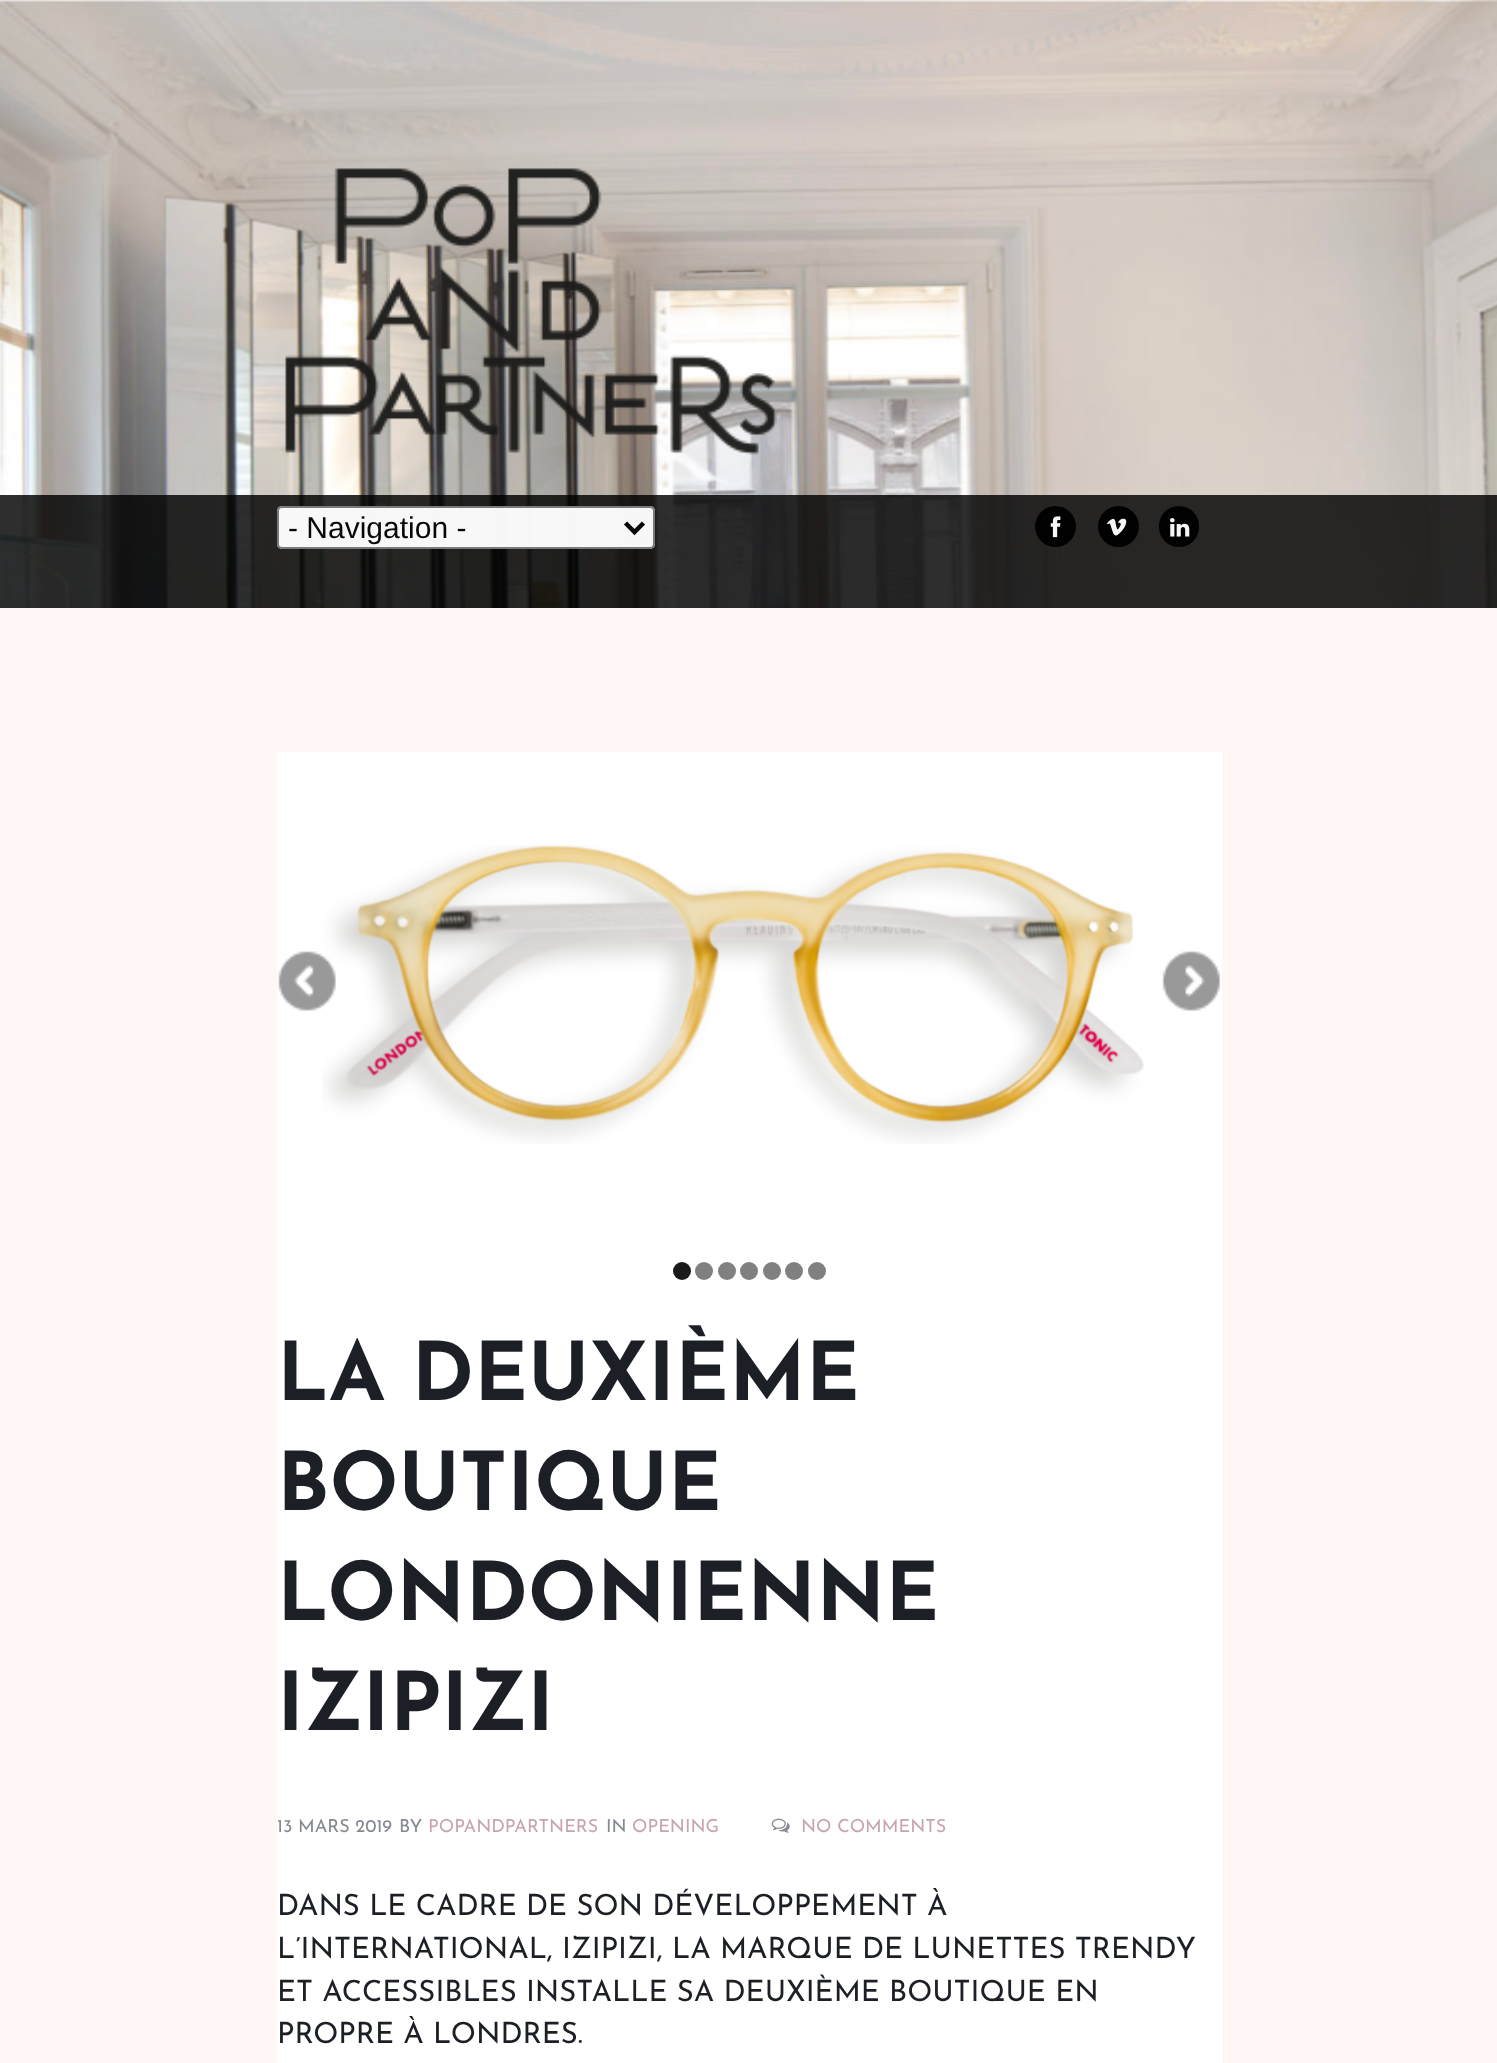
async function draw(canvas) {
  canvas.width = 1497
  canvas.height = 2063
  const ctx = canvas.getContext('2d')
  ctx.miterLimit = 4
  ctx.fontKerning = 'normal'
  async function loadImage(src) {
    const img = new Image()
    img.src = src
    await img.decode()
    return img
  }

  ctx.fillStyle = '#fff'
  ctx.fillRect(0, 0, 1497, 2063)
  ctx.drawImage(await loadImage('image0.png'), 0, 0, 1497, 608)
  ctx.drawImage(await loadImage('image1.png'), 285, 168, 492, 287)
  ctx.fillStyle = '#000000d1'
  ctx.fillRect(0, 495, 1497, 113)
  ctx.fillStyle = '#fffffff7'
  ctx.beginPath()
  ctx.roundRect(277, 506, 378, 43, 5)
  ctx.fill()
  ctx.beginPath()
  ctx.roundRect(278, 507, 376, 41, 4)
  ctx.strokeStyle = '#767676f7'
  ctx.lineWidth = 2
  ctx.stroke()
  ctx.beginPath()
  ctx.moveTo(625.5, 523)
  ctx.lineTo(634.5, 532)
  ctx.lineTo(643.5, 523)
  ctx.strokeStyle = '#080808'
  ctx.lineWidth = 4.5
  ctx.stroke()
  ctx.font = '30px Liberation Sans'
  ctx.fillStyle = '#080808'
  ctx.fillText('- Navigation -', 288, 538)
  ctx.fillStyle = '#000000f7'
  ctx.beginPath()
  ctx.arc(1055.5, 526.5, 20.5, 0, 2 * Math.PI)
  ctx.fill()
  ctx.drawImage(await loadImage('image2.png'), 1050, 516, 11, 22)
  ctx.fillStyle = '#010101'
  ctx.beginPath()
  ctx.arc(1118.5, 526.5, 20.5, 0, 2 * Math.PI)
  ctx.fill()
  ctx.drawImage(await loadImage('image3.png'), 1107, 518, 20, 18)
  ctx.beginPath()
  ctx.roundRect(1159, 506, 40, 41, 20)
  ctx.fill()
  ctx.drawImage(await loadImage('image4.png'), 1170, 518, 20, 19)
  ctx.fillStyle = '#fff6f6'
  ctx.fillRect(0, 608, 1497, 1455)
  ctx.fillStyle = '#fff'
  ctx.fillRect(277, 752, 945, 1311)
  ctx.drawImage(await loadImage('image5.png'), 322, 845, 822, 299)
  ctx.drawImage(await loadImage('image6.png'), 278, 951, 58, 60)
  ctx.drawImage(await loadImage('image7.png'), 1162, 951, 59, 60)
  ctx.fillStyle = '#1a1a1a'
  ctx.beginPath()
  ctx.arc(682, 1271, 9, 0, 2 * Math.PI)
  ctx.fill()
  ctx.fillStyle = '#808080'
  ctx.beginPath()
  ctx.arc(704, 1271, 9, 0, 2 * Math.PI)
  ctx.fill()
  ctx.beginPath()
  ctx.arc(727, 1271, 9, 0, 2 * Math.PI)
  ctx.fill()
  ctx.beginPath()
  ctx.arc(749, 1271, 9, 0, 2 * Math.PI)
  ctx.fill()
  ctx.beginPath()
  ctx.arc(772, 1271, 9, 0, 2 * Math.PI)
  ctx.fill()
  ctx.beginPath()
  ctx.arc(794, 1271, 9, 0, 2 * Math.PI)
  ctx.fill()
  ctx.beginPath()
  ctx.arc(817, 1271, 9, 0, 2 * Math.PI)
  ctx.fill()
  ctx.font = 'bold 81px Josefin Sans'
  ctx.fillStyle = '#1c1f26'
  ctx.fillText('LA DEUXIÈME', 277, 1400)
  ctx.fillText('BOUTIQUE', 277, 1510)
  ctx.fillText('LONDONIENNE', 277, 1620)
  ctx.fillText('IZIPIZI', 277, 1730)
  ctx.font = '18px Josefin Sans'
  ctx.fillStyle = '#868991'
  ctx.fillText('13 MARS 2019', 277, 1832)
  ctx.fillText('BY', 399, 1832)
  ctx.fillStyle = '#c6a5ae'
  ctx.fillText('POPANDPARTNERS', 428, 1832)
  ctx.fillStyle = '#868991'
  ctx.fillText('IN', 606, 1832)
  ctx.fillStyle = '#c6a5ae'
  ctx.fillText('OPENING', 632, 1832)
  ctx.drawImage(await loadImage('image8.png'), 771, 1818, 19, 15)
  ctx.fillText('NO COMMENTS', 801, 1832)
  ctx.font = '29.25px Josefin Sans'
  ctx.fillStyle = '#1c1f26'
  ctx.fillText('DANS LE CADRE DE SON DÉVELOPPEMENT À', 277, 1915)
  ctx.fillText('L’INTERNATIONAL, IZIPIZI, LA MARQUE DE LUNETTES TRENDY', 277, 1958)
  ctx.fillText('ET ACCESSIBLES INSTALLE SA DEUXIÈME BOUTIQUE EN', 277, 2001)
  ctx.fillText('PROPRE À LONDRES.', 277, 2043)
}

draw(document.querySelector('canvas'))
